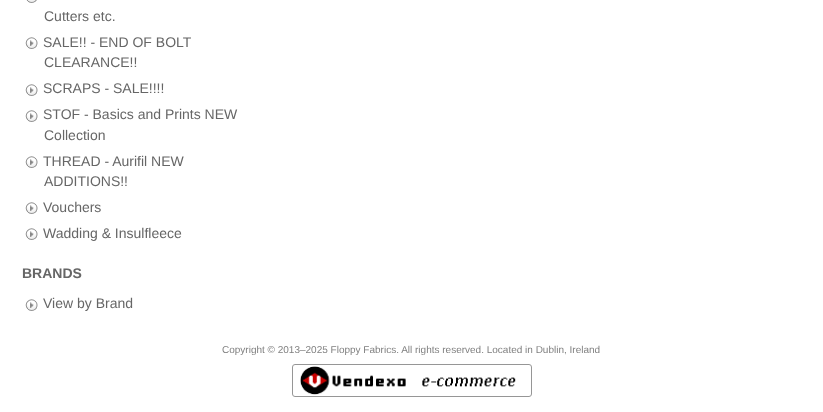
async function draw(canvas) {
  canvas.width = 823
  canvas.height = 412
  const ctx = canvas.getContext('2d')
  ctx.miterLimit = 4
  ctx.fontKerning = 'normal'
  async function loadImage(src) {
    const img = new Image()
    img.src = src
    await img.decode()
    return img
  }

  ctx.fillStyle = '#fff'
  ctx.fillRect(0, 0, 823, 412)
  ctx.drawImage(await loadImage('image0.png'), 26, 0, 11, 3)
  ctx.font = '14px Liberation Sans'
  ctx.fillStyle = '#666'
  ctx.fillText('Cutters etc.', 44, 21)
  ctx.drawImage(await loadImage('image1.png'), 25, 37, 13, 12)
  ctx.fillText('SALE!! - END OF BOLT', 43, 47)
  ctx.fillText('CLEARANCE!!', 44, 67)
  ctx.drawImage(await loadImage('image1.png'), 25, 84, 13, 12)
  ctx.fillText('SCRAPS - SALE!!!!', 43, 93)
  ctx.drawImage(await loadImage('image1.png'), 25, 110, 13, 12)
  ctx.fillText('STOF - Basics and Prints NEW', 43, 119)
  ctx.fillText('Collection', 44, 140)
  ctx.drawImage(await loadImage('image1.png'), 25, 156, 13, 12)
  ctx.fillText('THREAD - Aurifil NEW', 43, 166)
  ctx.fillText('ADDITIONS!!', 44, 186)
  ctx.drawImage(await loadImage('image1.png'), 25, 202, 13, 12)
  ctx.fillText('Vouchers', 43, 212)
  ctx.drawImage(await loadImage('image1.png'), 25, 228, 13, 12)
  ctx.fillText('Wadding & Insulfleece', 43, 238)
  ctx.font = 'bold 14px Liberation Sans'
  ctx.fillText('BRANDS', 22, 278)
  ctx.drawImage(await loadImage('image1.png'), 25, 299, 13, 12)
  ctx.font = '14px Liberation Sans'
  ctx.fillText('View by Brand', 43, 308)
  ctx.font = '10px Liberation Sans'
  ctx.fillStyle = '#808080'
  ctx.fillText('Copyright © 2013–2025 Floppy Fabrics. All rights reserved. Located in Dublin, Ireland', 222, 353)
  ctx.beginPath()
  ctx.roundRect(292.5, 364.5, 239, 32, 2.5)
  ctx.strokeStyle = '#969696'
  ctx.stroke()
  ctx.drawImage(await loadImage('image2.png'), 300, 366, 216, 29)
}

draw(document.querySelector('canvas'))
